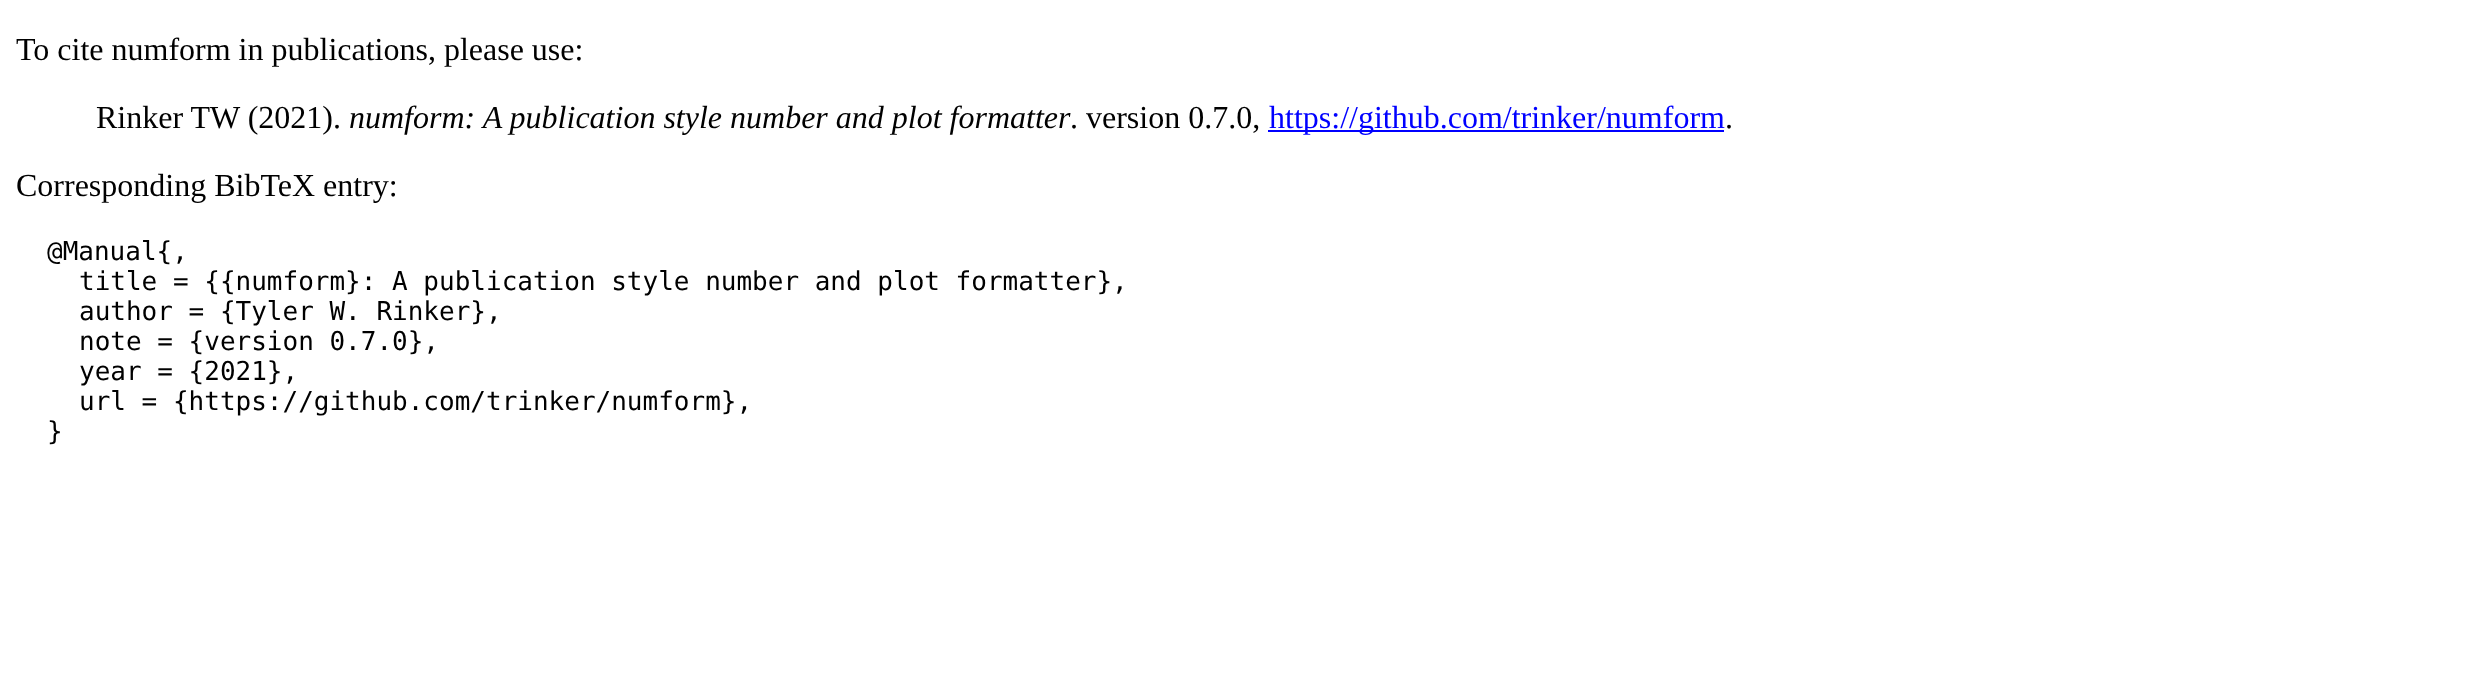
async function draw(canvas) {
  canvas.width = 2490
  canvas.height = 682
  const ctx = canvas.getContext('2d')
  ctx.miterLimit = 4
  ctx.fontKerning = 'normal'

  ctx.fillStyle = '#fff'
  ctx.fillRect(0, 0, 2490, 682)
  ctx.font = '32px Liberation Serif'
  ctx.fillStyle = '#000'
  ctx.fillText('To cite numform in publications, please use:', 16, 60)
  ctx.fillText('Rinker TW (2021).', 96, 128)
  ctx.font = 'italic 32px Liberation Serif'
  ctx.fillText('numform: A publication style number and plot formatter', 349, 128)
  ctx.font = '32px Liberation Serif'
  ctx.fillText('. version 0.7.0,', 1070, 128)
  ctx.fillStyle = '#00f'
  ctx.fillRect(1268, 130, 456, 2)
  ctx.fillText('https://github.com/trinker/numform', 1269, 128)
  ctx.fillStyle = '#000'
  ctx.fillText('.', 1725, 128)
  ctx.fillText('Corresponding BibTeX entry:', 16, 196)
  ctx.font = '26px DejaVu Sans Mono'
  ctx.fillText('@Manual{,', 47, 260)
  ctx.fillText('title = {{numform}: A publication style number and plot formatter},', 79, 290)
  ctx.fillText('author = {Tyler W. Rinker},', 79, 320)
  ctx.fillText('note = {version 0.7.0},', 79, 350)
  ctx.fillText('year = {2021},', 79, 380)
  ctx.fillText('url = {https://github.com/trinker/numform},', 79, 410)
  ctx.fillText('}', 47, 440)
}

draw(document.querySelector('canvas'))
